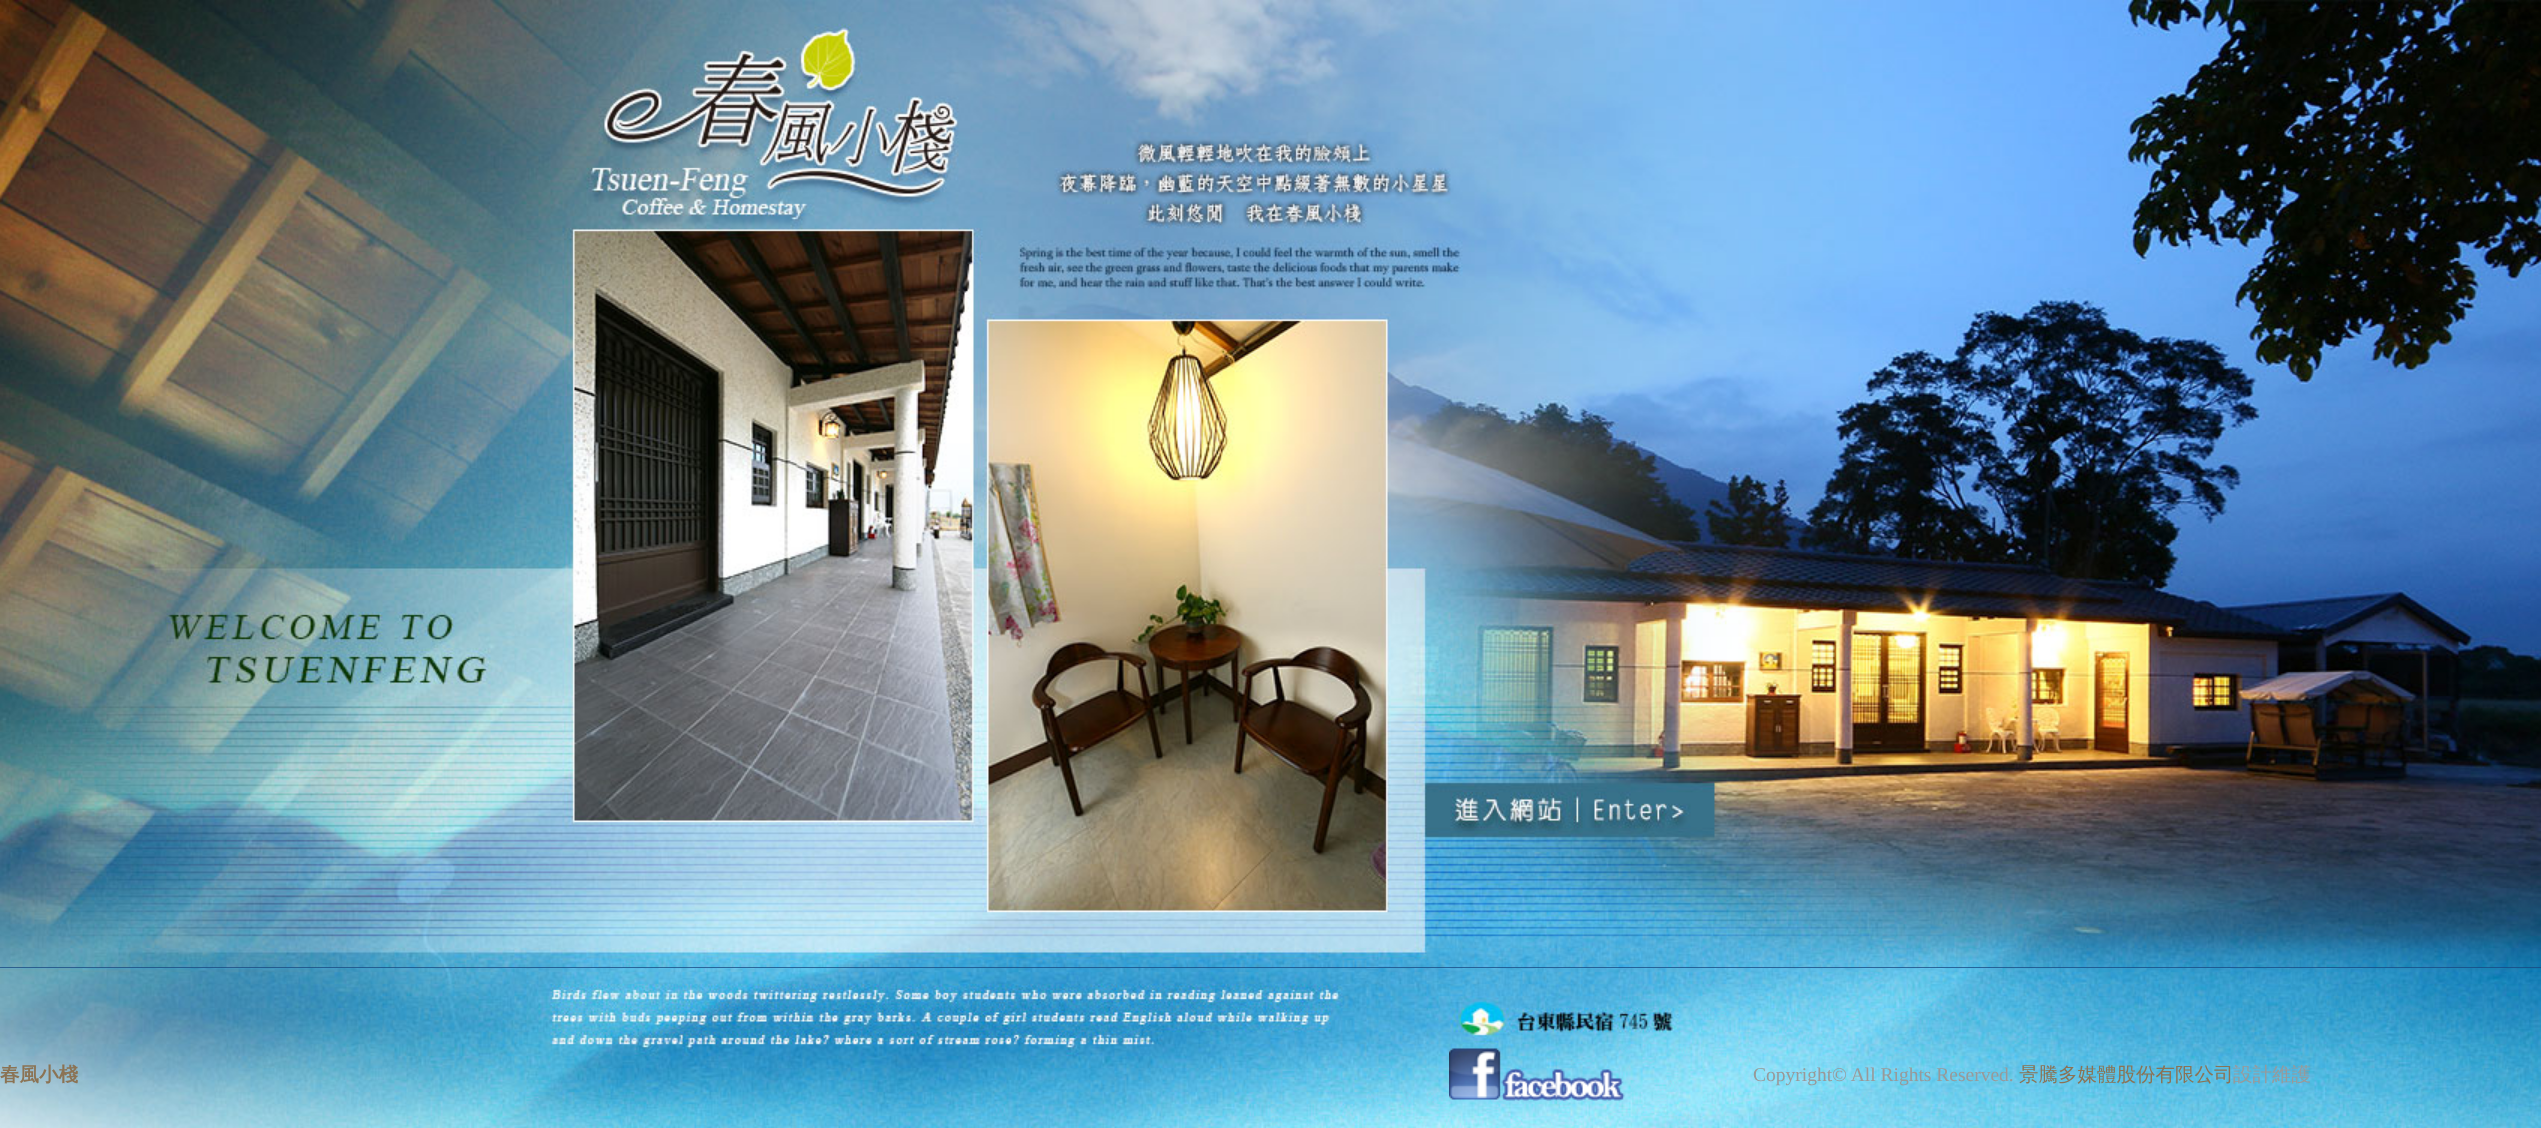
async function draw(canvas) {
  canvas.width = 2541
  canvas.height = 1128
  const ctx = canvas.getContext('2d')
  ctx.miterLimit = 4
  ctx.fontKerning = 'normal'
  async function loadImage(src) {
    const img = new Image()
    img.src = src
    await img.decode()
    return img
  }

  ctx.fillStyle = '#fff'
  ctx.fillRect(0, 0, 2541, 1128)
  ctx.drawImage(await loadImage('image0.png'), 0, 968, 2541, 160)
  ctx.fillStyle = '#194982'
  ctx.fillRect(0, 967, 2541, 1)
  ctx.drawImage(await loadImage('image1.png'), 0, 0, 2541, 968)
  ctx.font = 'bold 19.5px WenQuanYi Zen Hei'
  ctx.fillStyle = '#8b7354'
  ctx.fillText('春風小棧', 0, 1081)
  ctx.drawImage(await loadImage('image2.png'), 1449, 1048, 176, 53)
  ctx.font = '19.5px Liberation Serif'
  ctx.fillStyle = '#999'
  ctx.fillText('Copyright© All Rights Reserved.', 1753, 1081)
  ctx.font = '500 19.5px WenQuanYi Zen Hei'
  ctx.fillStyle = '#8b7354'
  ctx.fillText('景騰多媒體股份有限公司', 2019, 1081)
  ctx.fillStyle = '#999'
  ctx.fillText('設計維護', 2233, 1081)
}

draw(document.querySelector('canvas'))
